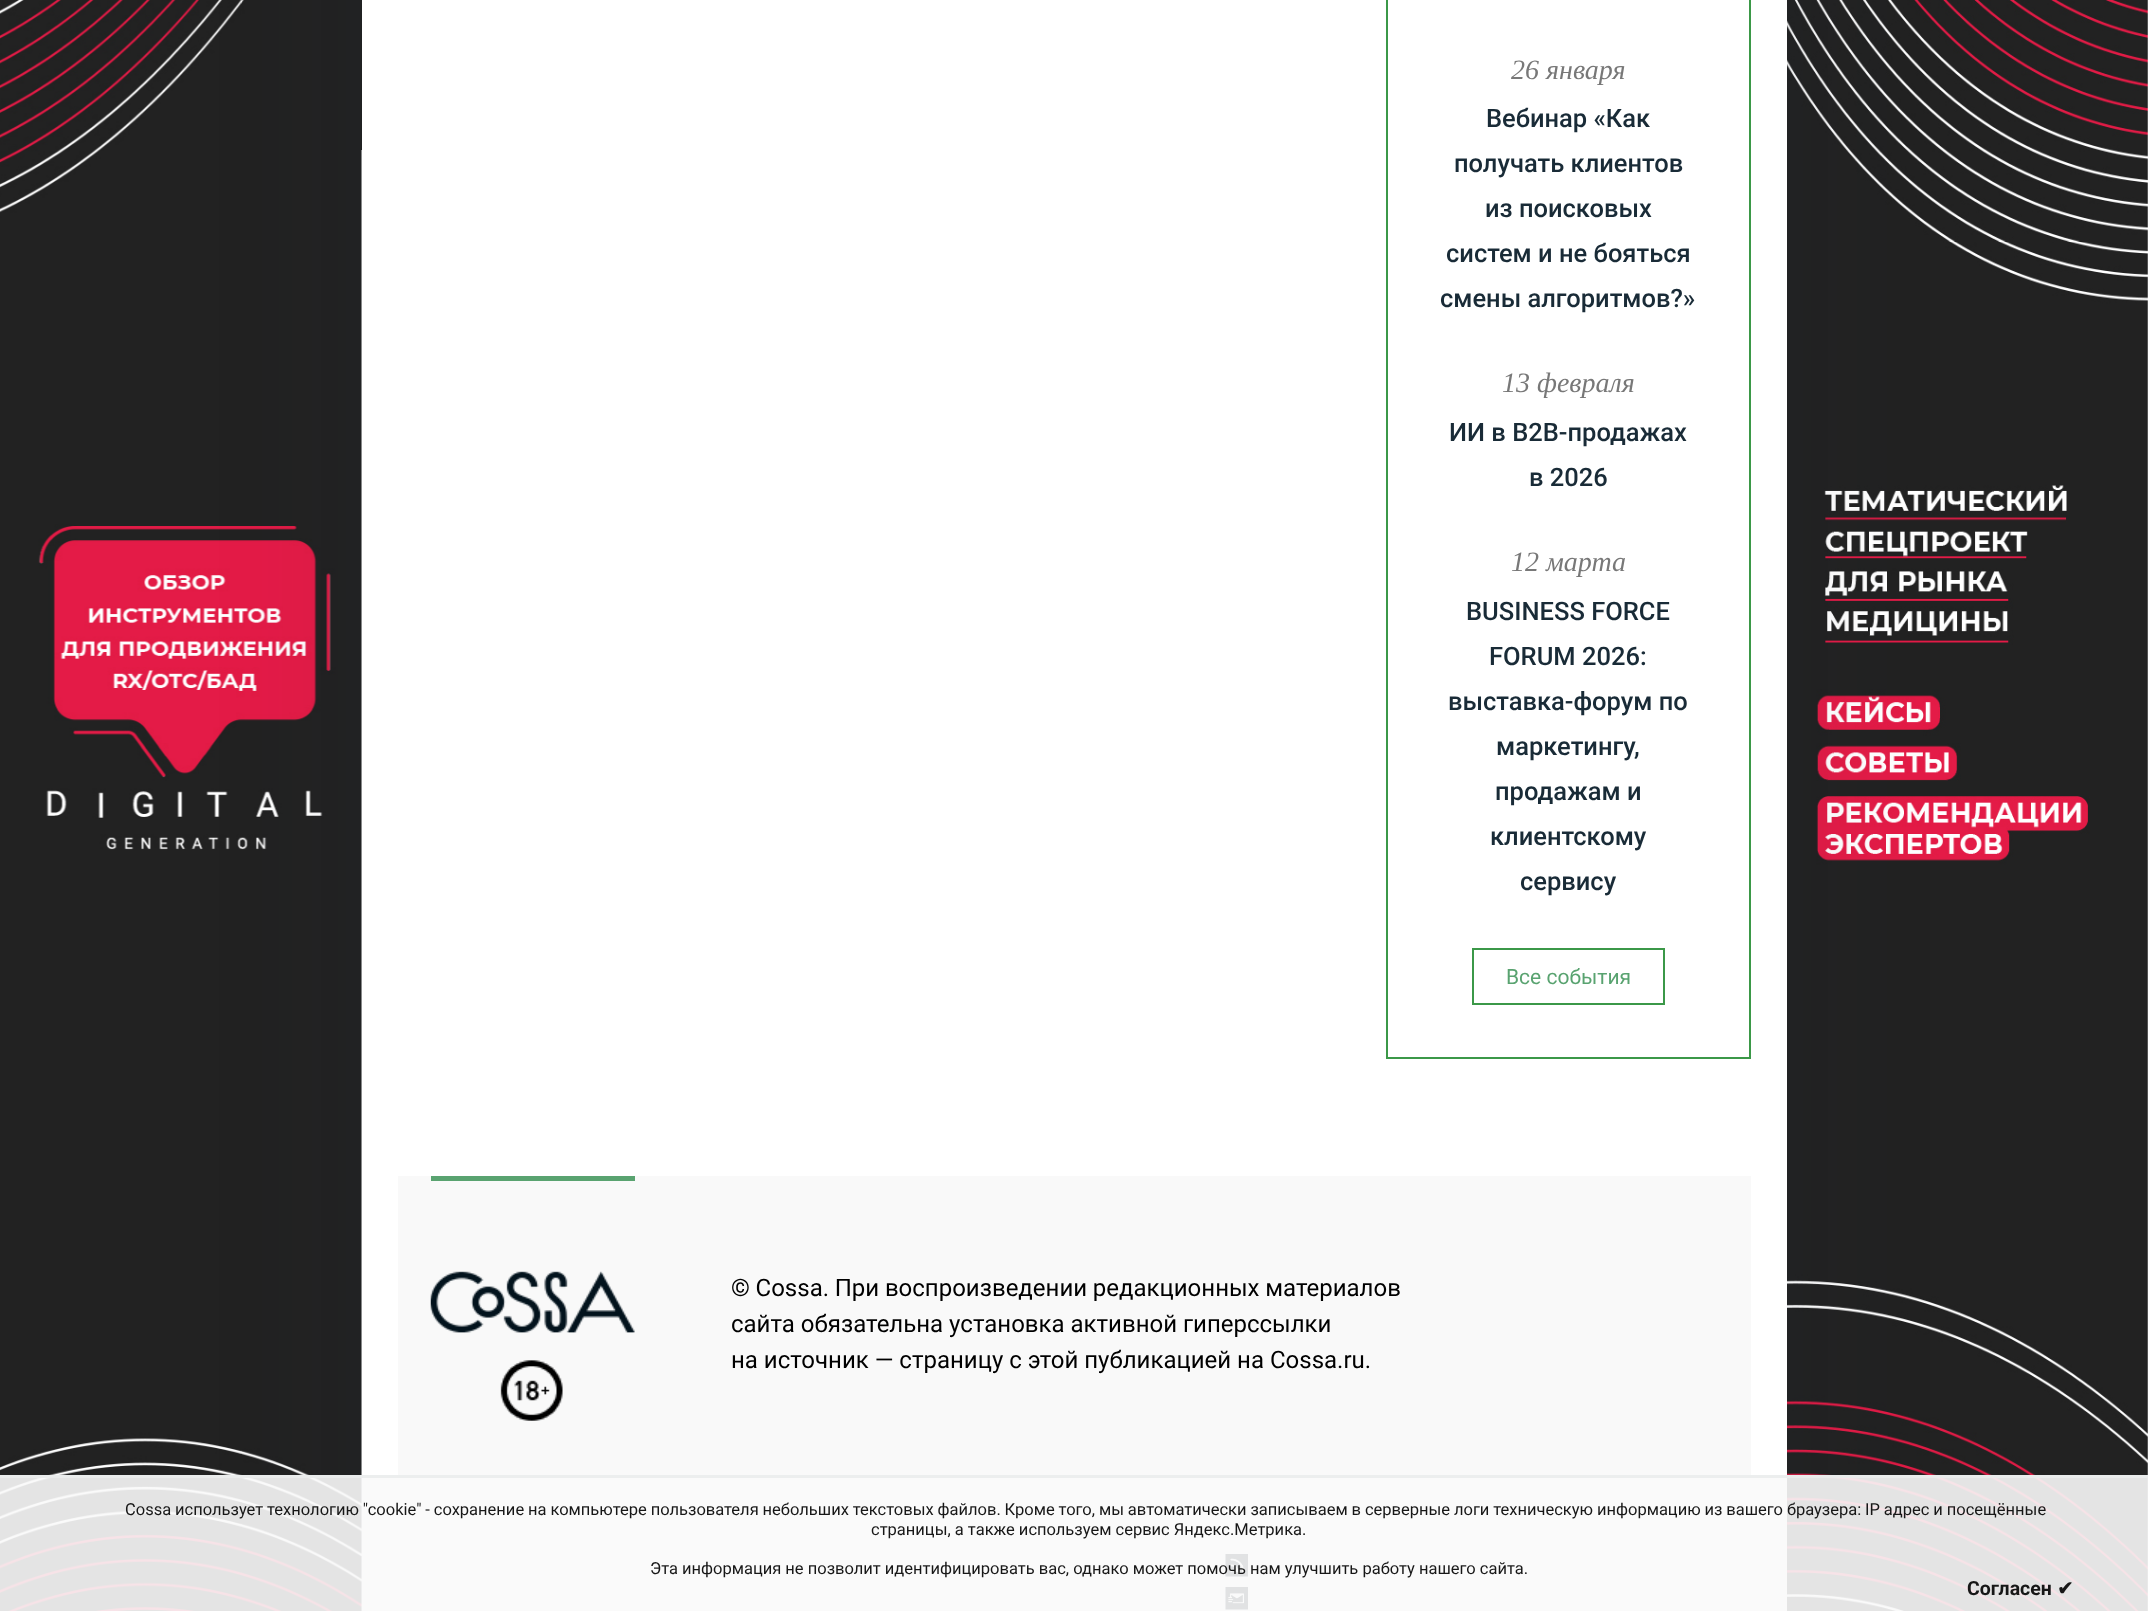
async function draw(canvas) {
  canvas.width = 2148
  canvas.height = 1611
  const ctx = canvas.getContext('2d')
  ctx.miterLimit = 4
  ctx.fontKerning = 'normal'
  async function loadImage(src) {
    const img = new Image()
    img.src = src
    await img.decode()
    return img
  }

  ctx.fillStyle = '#fff'
  ctx.fillRect(0, 0, 2148, 1611)
  ctx.drawImage(await loadImage('image1.png'), 361, 0, 1, 150)
  ctx.drawImage(await loadImage('image0.png'), 0, 0, 362, 1611)
  ctx.drawImage(await loadImage('image2.png'), 1787, 0, 361, 1611)
  ctx.fillStyle = '#192b371a'
  ctx.filter = 'blur(75px)'
  ctx.beginPath()
  ctx.rect(362, -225, 1425, 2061)
  ctx.fill()
  ctx.filter = 'none'
  ctx.fillStyle = '#fff'
  ctx.fillRect(362, 0, 1425, 1611)
  ctx.strokeStyle = '#3b9848'
  ctx.lineWidth = 2
  ctx.strokeRect(1387, -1, 363, 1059)
  ctx.font = 'italic 28px Liberation Serif'
  ctx.fillStyle = '#787878'
  ctx.fillText('26 января', 1511, 79)
  ctx.font = '500 25.5px Roboto'
  ctx.fillStyle = '#192b37'
  ctx.fillText('Вебинар «Как', 1486, 127)
  ctx.fillText('получать клиентов', 1454, 172)
  ctx.fillText('из поисковых', 1485, 217)
  ctx.fillText('систем и не бояться', 1446, 262)
  ctx.fillText('смены алгоритмов?»', 1440, 307)
  ctx.font = 'italic 28px Liberation Serif'
  ctx.fillStyle = '#787878'
  ctx.fillText('13 февраля', 1502, 392)
  ctx.font = '500 25.5px Roboto'
  ctx.fillStyle = '#192b37'
  ctx.fillText('ИИ в В2В-продажах', 1449, 441)
  ctx.fillText('в 2026', 1529, 486)
  ctx.font = 'italic 28px Liberation Serif'
  ctx.fillStyle = '#787878'
  ctx.fillText('12 марта', 1511, 571)
  ctx.font = '500 25.5px Roboto'
  ctx.fillStyle = '#192b37'
  ctx.fillText('BUSINESS FORCE', 1466, 620)
  ctx.fillText('FORUM 2026:', 1489, 665)
  ctx.fillText('выставка-форум по', 1448, 710)
  ctx.fillText('маркетингу,', 1496, 755)
  ctx.fillText('продажам и', 1495, 800)
  ctx.fillText('клиентскому', 1490, 845)
  ctx.fillText('сервису', 1520, 890)
  ctx.strokeRect(1473, 949, 191, 55)
  ctx.font = '21px Roboto'
  ctx.fillStyle = '#59a370'
  ctx.fillText('Все события', 1506, 984)
  ctx.fillStyle = '#f9f9f9'
  ctx.fillRect(398, 1176, 1353, 435)
  ctx.fillStyle = '#59a370'
  ctx.fillRect(431, 1176, 204, 5)
  ctx.drawImage(await loadImage('image3.png'), 430, 1271, 205, 150)
  ctx.wordSpacing = '-0.25px'
  ctx.font = '24px Roboto'
  ctx.fillStyle = '#000'
  ctx.fillText('© Cossa. При воспроизведении редакционных материалов', 731, 1296)
  ctx.wordSpacing = '0px'
  ctx.fillText('сайта обязательна установка активной гиперссылки', 731, 1332)
  ctx.fillText('на источник — страницу с этой публикацией на Cossa.ru.', 731, 1368)
  ctx.drawImage(await loadImage('image4.png'), 1225, 1554, 23, 23)
  ctx.drawImage(await loadImage('image5.png'), 1225, 1587, 23, 23)
  ctx.fillStyle = '#f9f9f9e6'
  ctx.fillRect(0, 1475, 2148, 136)
  ctx.fillStyle = '#eaecece6'
  ctx.fillRect(0, 1475, 2148, 3)
  ctx.wordSpacing = '-0.2px'
  ctx.font = '16.5px Roboto'
  ctx.fillStyle = '#171717'
  ctx.fillText('Cossa использует технологию "cookie" - сохранение на компьютере пользователя небольших текстовых файлов. Кроме того, мы автоматически записываем в серверные логи техническую информацию из вашего браузера: IP адрес и посещённые', 125, 1515)
  ctx.wordSpacing = '0px'
  ctx.fillText('страницы, а также используем сервис Яндекс.Метрика.', 871, 1535)
  ctx.fillText('Эта информация не позволит идентифицировать вас, однако может помочь нам улучшить работу нашего сайта.', 650, 1574)
  ctx.font = 'bold 19.5px Roboto'
  ctx.fillText('Согласен', 1967, 1595)
  ctx.font = 'bold 19.5px DejaVu Sans'
  ctx.fillText('✔', 2057, 1595)
}

draw(document.querySelector('canvas'))
